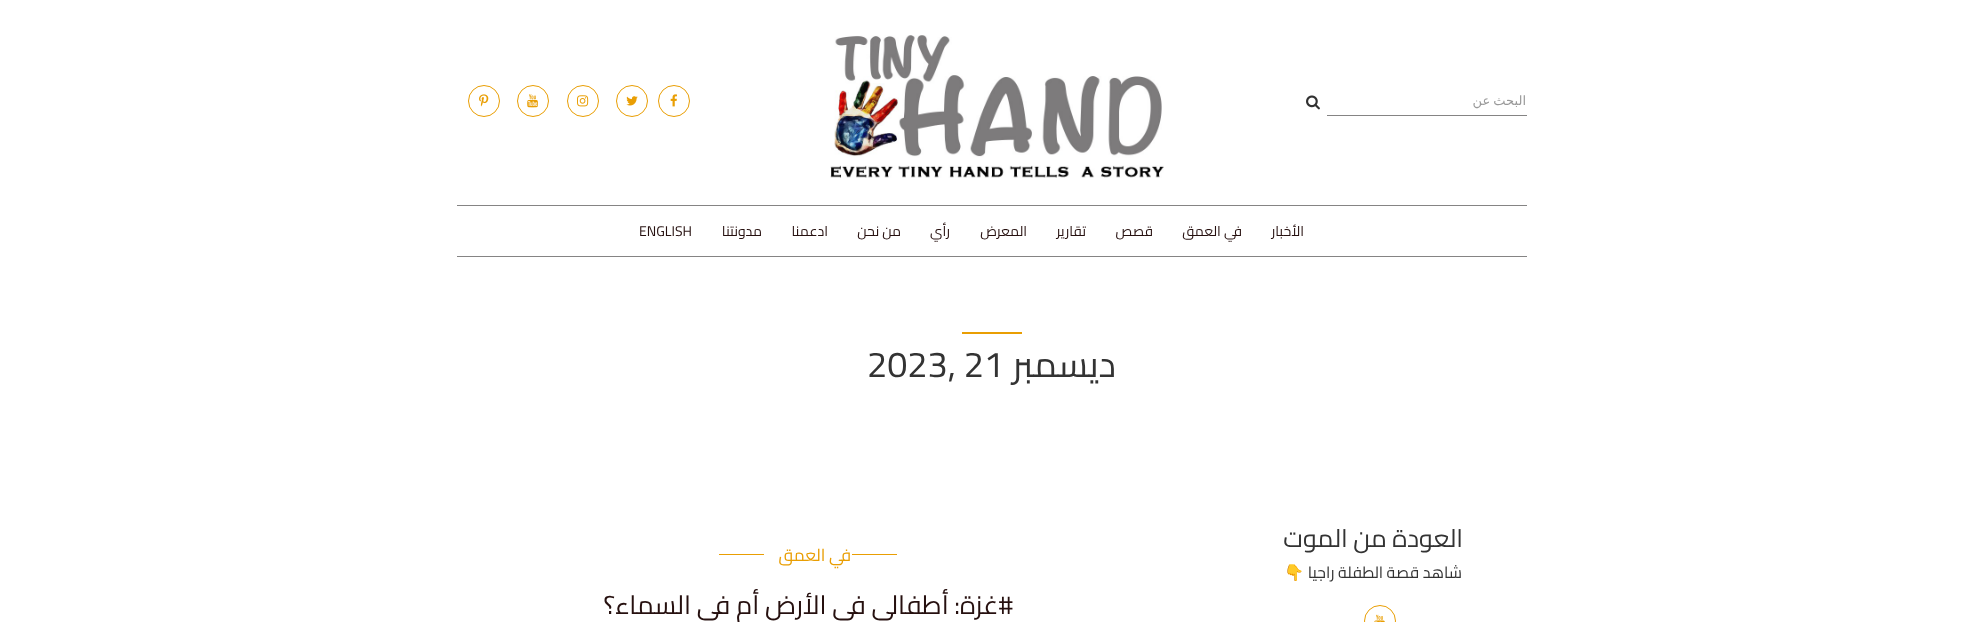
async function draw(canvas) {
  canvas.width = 1983
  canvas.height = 622
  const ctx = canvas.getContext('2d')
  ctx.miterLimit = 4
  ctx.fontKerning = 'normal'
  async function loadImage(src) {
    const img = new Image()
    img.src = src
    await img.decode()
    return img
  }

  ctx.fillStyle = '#fff'
  ctx.fillRect(0, 0, 1983, 622)
  ctx.fillStyle = '#858484'
  ctx.fillRect(1327, 115, 200, 1)
  ctx.wordSpacing = '-1px'
  ctx.direction = 'rtl'
  ctx.font = '13px DejaVu Sans'
  ctx.fillStyle = '#999'
  ctx.fillText('البحث عن', 1526, 105)
  ctx.drawImage(await loadImage('image0.png'), 1306, 95, 14, 15)
  ctx.drawImage(await loadImage('image1.png'), 830, 35, 334, 143)
  ctx.beginPath()
  ctx.arc(674, 101, 15.5, 0, 2 * Math.PI)
  ctx.strokeStyle = '#e99e03'
  ctx.stroke()
  ctx.drawImage(await loadImage('image2.png'), 670, 94, 7, 13)
  ctx.beginPath()
  ctx.arc(632, 101, 15.5, 0, 2 * Math.PI)
  ctx.stroke()
  ctx.drawImage(await loadImage('image3.png'), 626, 96, 12, 10)
  ctx.beginPath()
  ctx.arc(583, 101, 15.5, 0, 2 * Math.PI)
  ctx.stroke()
  ctx.drawImage(await loadImage('image4.png'), 577, 95, 12, 12)
  ctx.beginPath()
  ctx.arc(533, 101, 15.5, 0, 2 * Math.PI)
  ctx.stroke()
  ctx.drawImage(await loadImage('image5.png'), 527, 94, 11, 14)
  ctx.beginPath()
  ctx.arc(484, 101, 15.5, 0, 2 * Math.PI)
  ctx.stroke()
  ctx.drawImage(await loadImage('image6.png'), 479, 94, 10, 13)
  ctx.fillStyle = '#858484'
  ctx.fillRect(457, 205, 1070, 1)
  ctx.fillRect(457, 256, 1070, 1)
  ctx.wordSpacing = '0px'
  ctx.font = '14px Cairo'
  ctx.fillStyle = '#26100f'
  ctx.fillText('الأخبار', 1304, 236)
  ctx.fillText('في العمق', 1242, 236)
  ctx.fillText('قصص', 1153, 236)
  ctx.fillText('تقارير', 1086, 236)
  ctx.fillText('المعرض', 1027, 236)
  ctx.fillText('رأي', 950, 236)
  ctx.fillText('من نحن', 901, 236)
  ctx.fillText('ادعمنا', 828, 236)
  ctx.fillText('مدونتنا', 762, 236)
  ctx.direction = 'ltr'
  ctx.fillText('ENGLISH', 639, 236)
  ctx.fillStyle = '#e99e03'
  ctx.fillRect(962, 332, 60, 2)
  ctx.direction = 'rtl'
  ctx.font = '36px Cairo'
  ctx.fillStyle = '#333'
  ctx.fillText('ديسمبر', 1116, 377)
  ctx.direction = 'ltr'
  ctx.fillText('2023, 21', 867, 377)
  ctx.direction = 'rtl'
  ctx.font = '25px Cairo'
  ctx.fillText('العودة من الموت', 1463, 547)
  ctx.font = '16px Cairo'
  ctx.fillText('شاهد قصة الطفلة راجيا', 1462, 578)
  ctx.font = '16px Noto Color Emoji'
  ctx.fillText('👇', 1304, 578)
  ctx.beginPath()
  ctx.arc(1380, 621, 15.5, 0, 2 * Math.PI)
  ctx.stroke()
  ctx.drawImage(await loadImage('image7.png'), 1374, 614, 11, 8)
  ctx.fillStyle = '#e99e03'
  ctx.fillRect(852, 554, 45, 1)
  ctx.letterSpacing = '1px'
  ctx.wordSpacing = '-1px'
  ctx.font = '17px Cairo'
  ctx.fillText('في العمق', 851, 561)
  ctx.fillRect(719, 554, 45, 1)
  ctx.letterSpacing = '0px'
  ctx.wordSpacing = '0px'
  ctx.font = '26px Cairo'
  ctx.fillStyle = '#26100f'
  ctx.fillText('#غزة: أطفالي في الأرض أم في السماء؟', 1013, 614)
}

draw(document.querySelector('canvas'))
